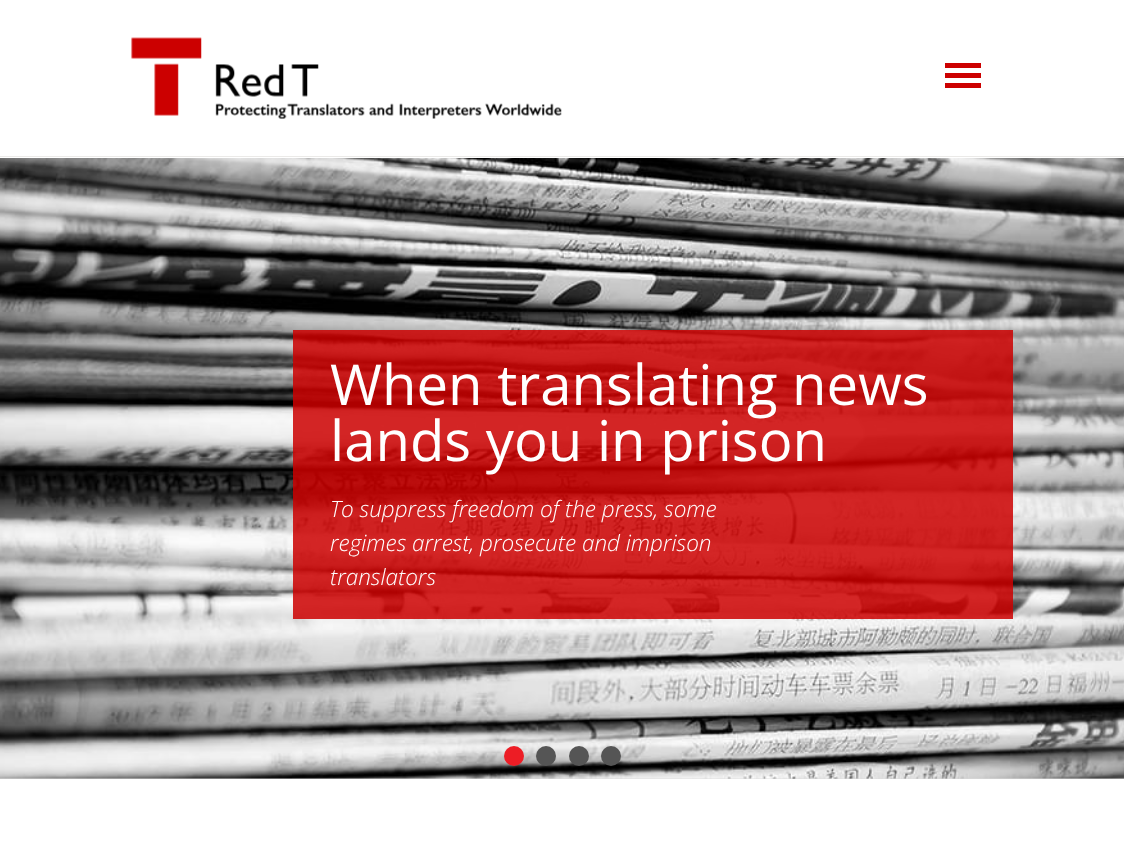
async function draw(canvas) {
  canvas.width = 1124
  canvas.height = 863
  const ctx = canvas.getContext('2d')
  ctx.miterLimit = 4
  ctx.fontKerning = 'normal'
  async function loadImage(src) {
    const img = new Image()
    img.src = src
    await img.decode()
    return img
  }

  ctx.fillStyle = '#fff'
  ctx.fillRect(0, 0, 1124, 863)
  ctx.drawImage(await loadImage('image0.png'), 131, 37, 431, 82)
  ctx.fillStyle = '#c00'
  ctx.fillRect(945, 63, 36, 5)
  ctx.fillRect(945, 83, 36, 5)
  ctx.fillRect(945, 73, 36, 5)
  ctx.fillStyle = '#ebeae8'
  ctx.fillRect(0, 156, 1124, 1)
  ctx.fillStyle = '#dcdcdc'
  ctx.fillRect(0, 778, 1124, 1)
  ctx.drawImage(await loadImage('image1.png'), 0, 158, 1124, 621)
  ctx.fillStyle = '#cc0000d9'
  ctx.fillRect(293, 330, 720, 289)
  ctx.font = '56.25px Open Sans'
  ctx.fillStyle = '#fff'
  ctx.fillText('When translating news', 330, 405)
  ctx.fillText('lands you in prison', 330, 461)
  ctx.font = 'italic 300 22.5px Open Sans'
  ctx.fillText('To suppress freedom of the press, some', 330, 517)
  ctx.fillText('regimes arrest, prosecute and imprison', 330, 551)
  ctx.fillText('translators', 330, 585)
  ctx.fillStyle = '#ed1d25'
  ctx.beginPath()
  ctx.arc(514, 756, 10, 0, 2 * Math.PI)
  ctx.fill()
  ctx.fillStyle = '#555'
  ctx.beginPath()
  ctx.arc(546, 756, 10, 0, 2 * Math.PI)
  ctx.fill()
  ctx.beginPath()
  ctx.arc(579, 756, 10, 0, 2 * Math.PI)
  ctx.fill()
  ctx.beginPath()
  ctx.arc(611, 756, 10, 0, 2 * Math.PI)
  ctx.fill()
}

draw(document.querySelector('canvas'))
